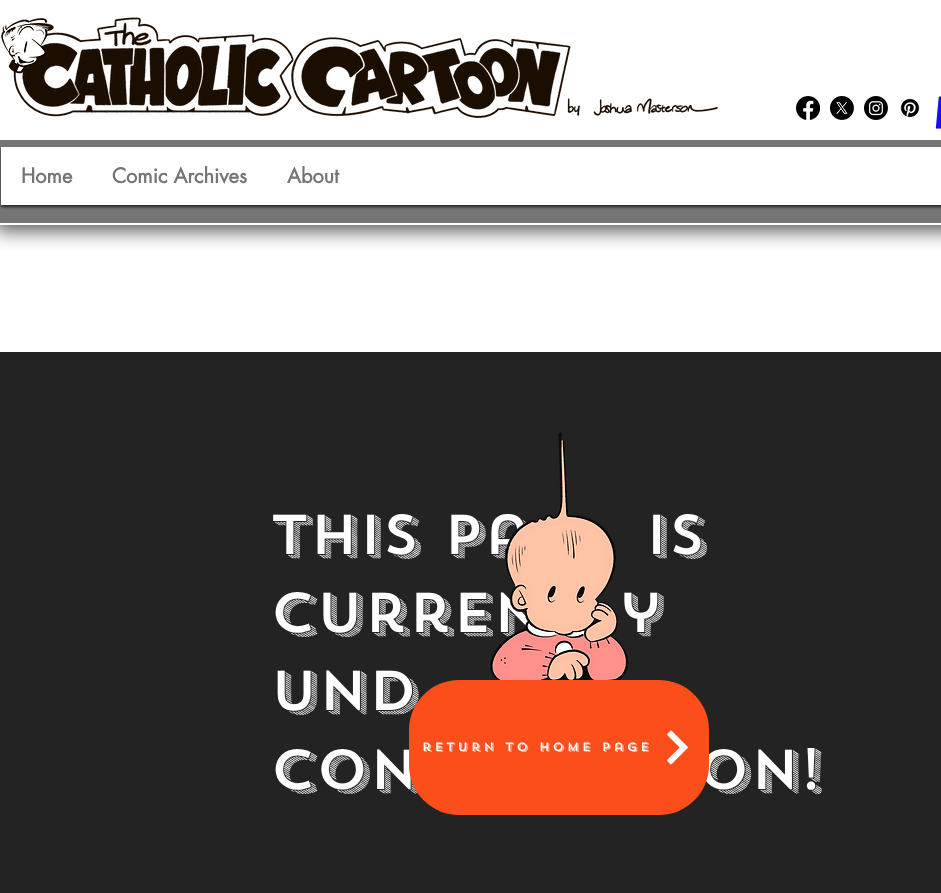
async function draw(canvas) {
  canvas.width = 941
  canvas.height = 893
  const ctx = canvas.getContext('2d')
  ctx.miterLimit = 4
  ctx.fontKerning = 'normal'
  async function loadImage(src) {
    const img = new Image()
    img.src = src
    await img.decode()
    return img
  }

  ctx.fillStyle = '#fff'
  ctx.fillRect(0, 0, 941, 893)
  ctx.save()
  ctx.beginPath()
  ctx.rect(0, 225, 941, 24)
  ctx.clip()
  ctx.fillStyle = '#000000b3'
  ctx.filter = 'blur(10px)'
  ctx.beginPath()
  ctx.rect(-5, -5, 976, 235)
  ctx.fill()
  ctx.filter = 'none'
  ctx.restore()
  ctx.drawImage(await loadImage('image0.png'), 1, 17, 717, 102)
  ctx.drawImage(await loadImage('image1.png'), 796, 96, 24, 24)
  ctx.drawImage(await loadImage('image2.png'), 830, 96, 24, 24)
  ctx.drawImage(await loadImage('image3.png'), 864, 96, 24, 24)
  ctx.drawImage(await loadImage('image4.png'), 900, 98, 20, 20)
  ctx.drawImage(await loadImage('image5.png'), 935, 96, 6, 33)
  ctx.fillStyle = '#757575'
  ctx.fillRect(0, 140, 941, 83)
  ctx.fillStyle = '#000000b3'
  ctx.filter = 'blur(1.5px)'
  ctx.beginPath()
  ctx.rect(1, 149, 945, 58)
  ctx.fill()
  ctx.filter = 'none'
  ctx.fillStyle = '#fff'
  ctx.fillRect(1, 147, 940, 58)
  ctx.font = 'bold 20px futura'
  ctx.fillStyle = '#747474'
  ctx.fillText('Home', 21, 183)
  ctx.fillText('Comic Archives', 112, 183)
  ctx.fillText('About', 287, 183)
  ctx.fillStyle = '#242323'
  ctx.fillRect(0, 352, 941, 541)
  ctx.font = '500 56px "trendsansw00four"'
  ctx.fillStyle = '#fff'
  ctx.fillText('this pa', 270, 554)
  ctx.fillText('is', 645, 554)
  ctx.fillText('curren', 270, 632)
  ctx.fillText('y', 619, 632)
  ctx.fillText('und', 270, 710)
  ctx.fillText('con', 270, 789)
  ctx.fillText('on!', 697, 789)
  ctx.drawImage(await loadImage('image6.png'), 490, 432, 139, 248)
  ctx.fillStyle = '#fc4e1a'
  ctx.beginPath()
  ctx.roundRect(409, 680, 300, 135, 50)
  ctx.fill()
  ctx.letterSpacing = '3px'
  ctx.font = '500 12px "trendsansw00four"'
  ctx.fillStyle = '#fff'
  ctx.fillText('return to home page', 422, 751)
  ctx.drawImage(await loadImage('image7.png'), 667, 730, 21, 35)
}

draw(document.querySelector('canvas'))
